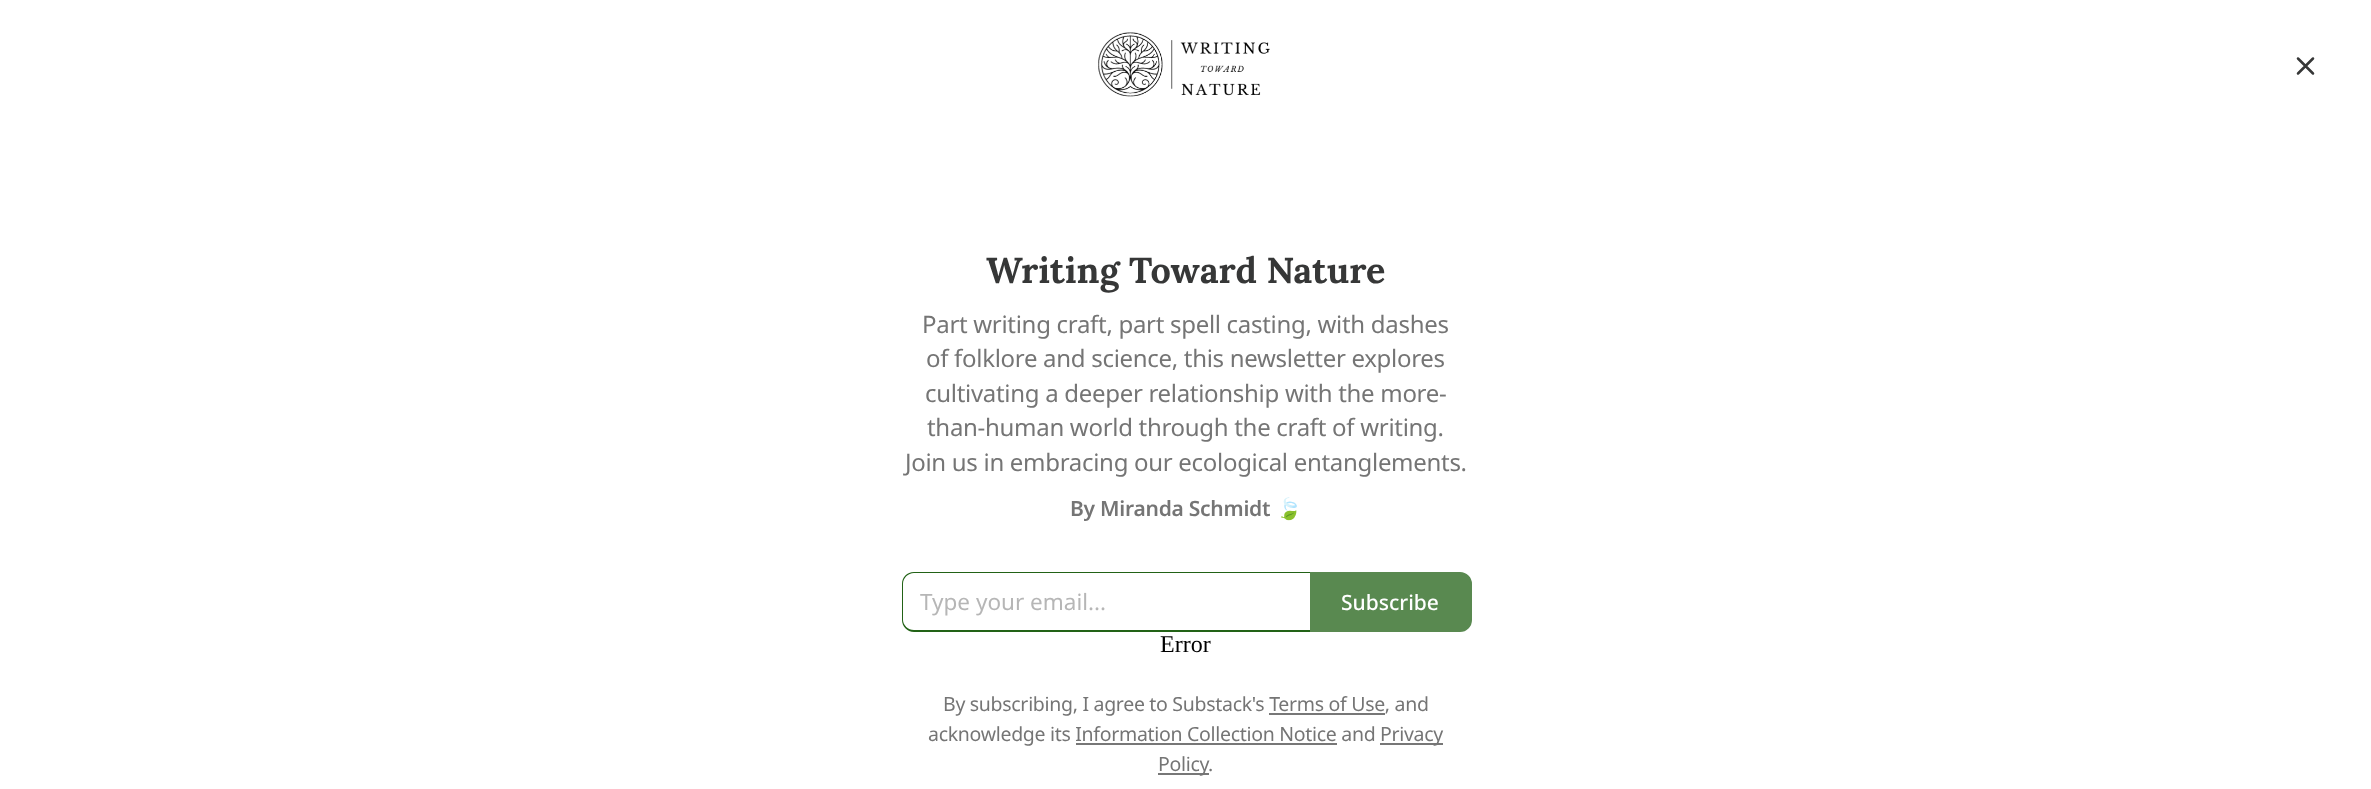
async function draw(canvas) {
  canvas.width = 2371
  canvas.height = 789
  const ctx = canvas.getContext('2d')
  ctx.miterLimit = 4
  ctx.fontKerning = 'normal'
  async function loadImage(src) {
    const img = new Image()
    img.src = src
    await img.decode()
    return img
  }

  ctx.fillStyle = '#fff'
  ctx.fillRect(0, 0, 2371, 789)
  ctx.drawImage(await loadImage('image0.png'), 1098, 32, 172, 65)
  ctx.beginPath()
  ctx.moveTo(2313, 58.5)
  ctx.lineTo(2298, 73.5)
  ctx.moveTo(2298, 58.5)
  ctx.lineTo(2313, 73.5)
  ctx.strokeStyle = '#363737'
  ctx.lineWidth = 2.5
  ctx.lineCap = 'round'
  ctx.lineJoin = 'round'
  ctx.stroke()
  ctx.font = 'bold 36px Lora'
  ctx.fillStyle = '#363737'
  ctx.fillText('Writing Toward Nature', 986, 283)
  ctx.letterSpacing = '-0.3px'
  ctx.font = '24px Noto Sans'
  ctx.fillStyle = '#757575'
  ctx.fillText('Part writing craft, part spell casting, with dashes', 922, 333)
  ctx.fillText('of folklore and science, this newsletter explores', 926, 367)
  ctx.fillText('cultivating a deeper relationship with the more-', 925, 402)
  ctx.fillText('than-human world through the craft of writing.', 927, 436)
  ctx.fillText('Join us in embracing our ecological entanglements.', 905, 471)
  ctx.letterSpacing = '-0.25px'
  ctx.font = '600 21px Noto Sans'
  ctx.fillText('By Miranda Schmidt', 1070, 516)
  ctx.font = 'bold 21px Noto Color Emoji'
  ctx.fillText('🍃', 1276, 516)
  ctx.fillStyle = '#226216'
  ctx.beginPath()
  ctx.moveTo(914, 572)
  ctx.lineTo(1310, 572)
  ctx.lineTo(1310, 632)
  ctx.lineTo(914, 632)
  ctx.bezierCurveTo(907, 632, 902, 626, 902, 620)
  ctx.lineTo(902, 584)
  ctx.bezierCurveTo(902, 577, 907, 572, 914, 572)
  ctx.closePath()
  ctx.moveTo(914, 573)
  ctx.lineTo(1310, 573)
  ctx.lineTo(1310, 630)
  ctx.lineTo(914, 630)
  ctx.bezierCurveTo(908, 630, 903, 625, 903, 620)
  ctx.lineTo(903, 584)
  ctx.bezierCurveTo(903, 578, 908, 573, 914, 573)
  ctx.closePath()
  ctx.fill('evenodd')
  ctx.letterSpacing = '0px'
  ctx.font = '22.5px Noto Sans'
  ctx.fillStyle = '#b6b6b6'
  ctx.fillText('Type your email...', 920, 610)
  ctx.fillStyle = '#598950'
  ctx.beginPath()
  ctx.roundRect(1311, 573, 160, 58, [0, 11, 11, 0])
  ctx.fill()
  ctx.strokeStyle = '#598950'
  ctx.lineWidth = 2
  ctx.lineJoin = 'miter'
  ctx.stroke()
  ctx.font = '500 21px Noto Sans'
  ctx.fillStyle = '#fff'
  ctx.fillText('Subscribe', 1341, 610)
  ctx.font = '24px Liberation Serif'
  ctx.fillStyle = '#000'
  ctx.fillText('Error', 1160, 652)
  ctx.letterSpacing = '-0.3px'
  ctx.font = '19.5px Noto Sans'
  ctx.fillStyle = '#757575'
  ctx.fillText('By subscribing, I agree to Substack\'s Terms of Use, and', 943, 711)
  ctx.fillStyle = '#777'
  ctx.fillRect(1269, 713, 116, 2)
  ctx.fillStyle = '#757575'
  ctx.fillText('acknowledge its Information Collection Notice and', 928, 741)
  ctx.fillStyle = '#777'
  ctx.fillRect(1380, 743, 63, 2)
  ctx.fillStyle = '#757575'
  ctx.fillText('Privacy', 1380, 741)
  ctx.fillStyle = '#777'
  ctx.fillRect(1076, 743, 261, 2)
  ctx.fillRect(1158, 773, 51, 2)
  ctx.fillStyle = '#757575'
  ctx.fillText('Policy', 1158, 771)
  ctx.fillText('.', 1208, 771)
}

draw(document.querySelector('canvas'))
